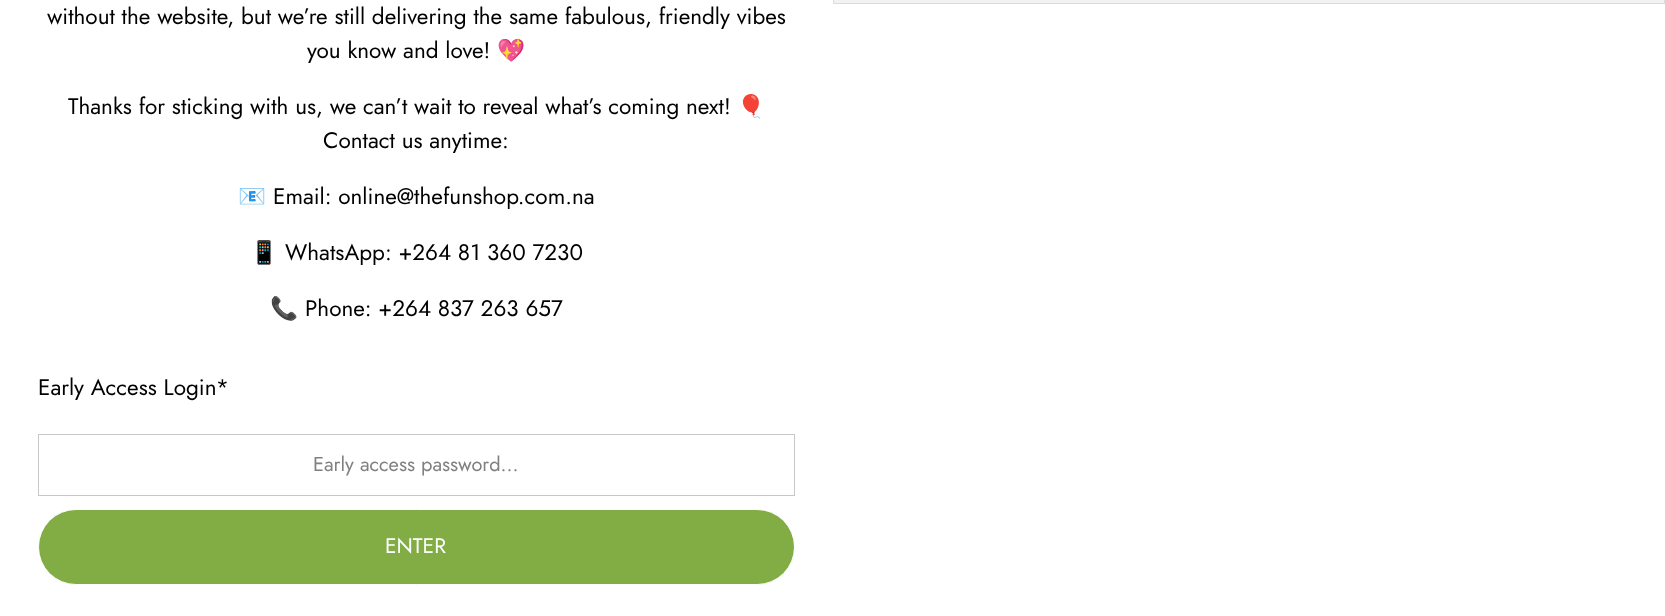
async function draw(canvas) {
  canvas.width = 1665
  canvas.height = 616
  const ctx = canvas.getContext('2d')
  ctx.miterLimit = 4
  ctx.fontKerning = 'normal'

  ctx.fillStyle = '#fff'
  ctx.fillRect(0, 0, 1665, 616)
  ctx.fillStyle = '#f2f2f3'
  ctx.beginPath()
  ctx.rect(833.5, -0.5, 831, 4)
  ctx.fill()
  ctx.strokeStyle = '#dadbde'
  ctx.stroke()
  ctx.font = '22.5px Jost'
  ctx.fillStyle = '#000'
  ctx.fillText('without the website, but we’re still delivering the same fabulous, friendly vibes', 47, 24)
  ctx.fillText('you know and love!', 307, 58)
  ctx.font = '22.5px Noto Color Emoji'
  ctx.fillText('💖', 497, 58)
  ctx.font = '22.5px Jost'
  ctx.fillText('Thanks for sticking with us, we can’t wait to reveal what’s coming next!', 68, 114)
  ctx.font = '22.5px Noto Color Emoji'
  ctx.fillText('🎈', 737, 114)
  ctx.font = '22.5px Jost'
  ctx.fillText('Contact us anytime:', 323, 148)
  ctx.font = '22.5px Noto Color Emoji'
  ctx.fillText('📧', 238, 204)
  ctx.font = '22.5px Jost'
  ctx.fillText('Email: online@thefunshop.com.na', 273, 204)
  ctx.font = '22.5px Noto Color Emoji'
  ctx.fillText('📱', 250, 260)
  ctx.font = '22.5px Jost'
  ctx.fillText('WhatsApp: +264 81 360 7230', 285, 260)
  ctx.font = '22.5px Noto Color Emoji'
  ctx.fillText('📞', 270, 316)
  ctx.font = '22.5px Jost'
  ctx.fillText('Phone: +264 837 263 657', 305, 316)
  ctx.fillText('Early Access Login*', 38, 395)
  ctx.strokeStyle = '#c7c7c7'
  ctx.strokeRect(38.5, 434.5, 756, 61)
  ctx.font = '20px Jost'
  ctx.fillStyle = '#808080'
  ctx.fillText('Early access password...', 313, 471)
  ctx.fillStyle = '#82ad44'
  ctx.beginPath()
  ctx.roundRect(38.5, 509.5, 756, 75, 37.5)
  ctx.fill()
  ctx.strokeStyle = '#fff'
  ctx.stroke()
  ctx.font = '21px Jost'
  ctx.fillStyle = '#fff'
  ctx.fillText('ENTER', 385, 553)
}

draw(document.querySelector('canvas'))
